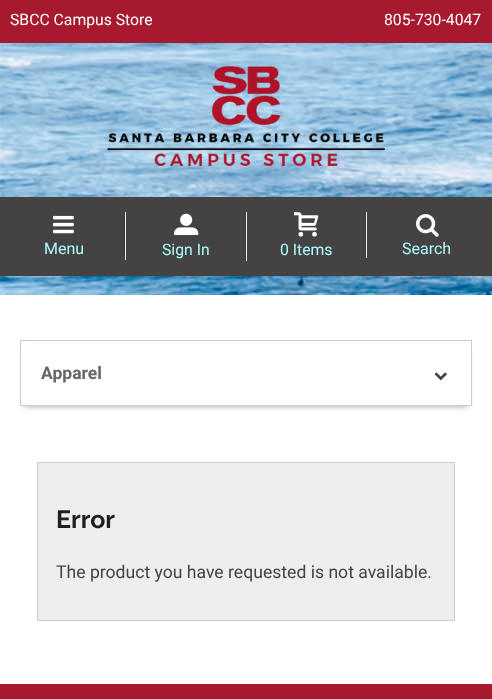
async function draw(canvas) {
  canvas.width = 492
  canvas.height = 699
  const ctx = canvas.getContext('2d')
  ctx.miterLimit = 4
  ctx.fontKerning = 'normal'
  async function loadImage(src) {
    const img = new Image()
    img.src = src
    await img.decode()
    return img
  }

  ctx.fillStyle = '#fff'
  ctx.fillRect(0, 0, 492, 699)
  ctx.drawImage(await loadImage('image0.png'), 0, 43, 492, 252)
  ctx.fillStyle = '#a6192e'
  ctx.fillRect(0, 0, 492, 43)
  ctx.font = '15.75px Roboto'
  ctx.fillStyle = '#fff'
  ctx.fillText('SBCC Campus Store', 10, 25)
  ctx.fillText('805-730-4047', 384, 25)
  ctx.drawImage(await loadImage('image1.png'), 107, 65, 278, 102)
  ctx.fillStyle = '#444242'
  ctx.fillRect(0, 197, 492, 79)
  ctx.fillStyle = '#3d3b3b'
  ctx.fillRect(124, 212, 1, 46)
  ctx.drawImage(await loadImage('image2.png'), 53, 215, 21, 19)
  ctx.font = '16px Roboto'
  ctx.fillStyle = '#adfcff'
  ctx.fillText('Menu', 44, 254)
  ctx.fillStyle = '#3d3b3b'
  ctx.fillRect(245, 212, 1, 48)
  ctx.fillStyle = '#ececec'
  ctx.fillRect(125, 212, 1, 48)
  ctx.drawImage(await loadImage('image3.png'), 174, 213, 25, 22)
  ctx.font = '15.75px Roboto'
  ctx.fillStyle = '#adfcff'
  ctx.fillText('Sign In', 162, 255)
  ctx.fillStyle = '#3d3b3b'
  ctx.fillRect(365, 212, 1, 49)
  ctx.fillStyle = '#ececec'
  ctx.fillRect(246, 212, 1, 49)
  ctx.drawImage(await loadImage('image4.png'), 294, 212, 25, 25)
  ctx.fillStyle = '#adfcff'
  ctx.fillText('0 Items', 280, 255)
  ctx.fillStyle = '#ececec'
  ctx.fillRect(366, 212, 1, 46)
  ctx.drawImage(await loadImage('image5.png'), 416, 214, 23, 23)
  ctx.font = '16px Roboto'
  ctx.fillStyle = '#adfcff'
  ctx.fillText('Search', 402, 254)
  ctx.fillStyle = '#00000066'
  ctx.filter = 'blur(3px)'
  ctx.beginPath()
  ctx.rect(25, 350, 442, 56)
  ctx.fill()
  ctx.filter = 'none'
  ctx.strokeStyle = '#ccc'
  ctx.strokeRect(20.5, 340.5, 451, 65)
  ctx.fillStyle = '#fff'
  ctx.fillRect(21, 344, 450, 61)
  ctx.font = 'bold 17.5px Roboto'
  ctx.fillStyle = '#666'
  ctx.fillText('Apparel', 41, 379)
  ctx.drawImage(await loadImage('image6.png'), 434, 372, 13, 9)
  ctx.fillStyle = '#eee'
  ctx.beginPath()
  ctx.rect(37.5, 462.5, 417, 158)
  ctx.fill()
  ctx.stroke()
  ctx.font = 'bold 25px Raleway'
  ctx.fillStyle = '#231f20'
  ctx.fillText('Error', 56, 528)
  ctx.font = '17.6px Roboto'
  ctx.fillStyle = '#444'
  ctx.fillText('The product you have requested is not available.', 56, 578)
  ctx.fillStyle = '#a6192e'
  ctx.fillRect(0, 684, 492, 15)
}

draw(document.querySelector('canvas'))
